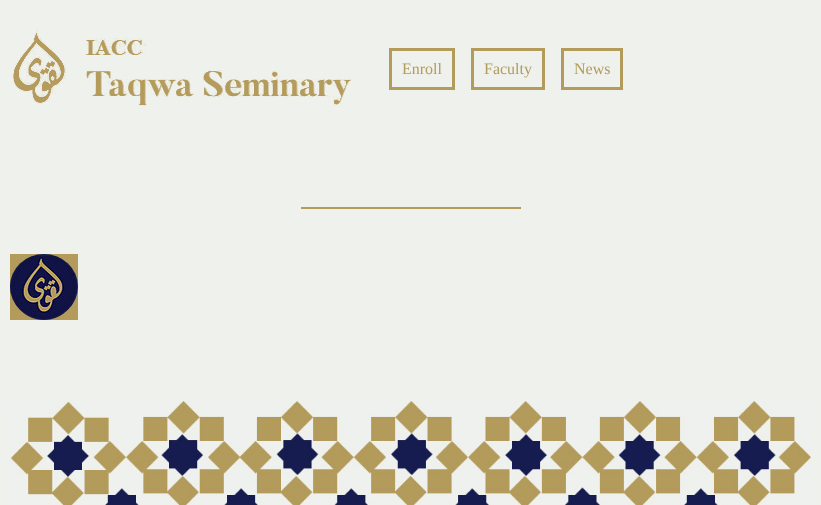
async function draw(canvas) {
  canvas.width = 821
  canvas.height = 505
  const ctx = canvas.getContext('2d')
  ctx.miterLimit = 4
  ctx.fontKerning = 'normal'
  async function loadImage(src) {
    const img = new Image()
    img.src = src
    await img.decode()
    return img
  }

  ctx.fillStyle = '#eff1ed'
  ctx.fillRect(0, 0, 821, 505)
  ctx.drawImage(await loadImage('image0.png'), 12, 30, 339, 77)
  ctx.strokeStyle = '#b39b5b'
  ctx.lineWidth = 3
  ctx.strokeRect(390.5, 49.5, 63, 39)
  ctx.font = '16px Liberation Serif'
  ctx.fillStyle = '#b39b5b'
  ctx.fillText('Enroll', 402, 74)
  ctx.strokeRect(472.5, 49.5, 71, 39)
  ctx.fillText('Faculty', 484, 74)
  ctx.strokeRect(562.5, 49.5, 59, 39)
  ctx.fillText('News', 574, 74)
  ctx.fillRect(301, 207, 220, 2)
  ctx.drawImage(await loadImage('image1.png'), 10, 254, 68, 66)
  ctx.drawImage(await loadImage('image2.png'), 10, 401, 801, 104)
}

draw(document.querySelector('canvas'))
